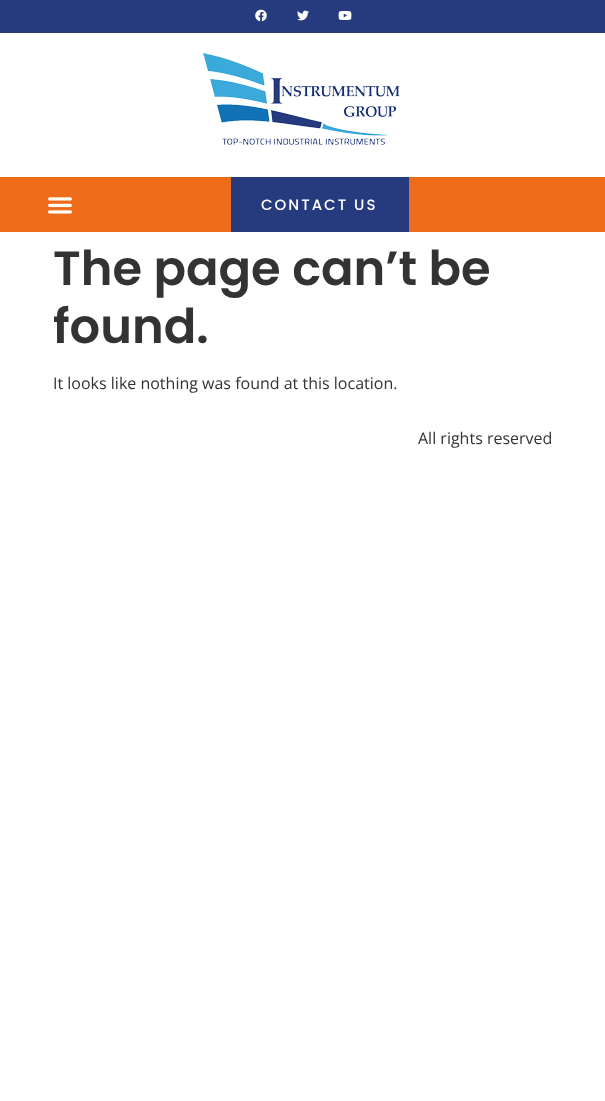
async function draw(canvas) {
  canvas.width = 605
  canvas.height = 1101
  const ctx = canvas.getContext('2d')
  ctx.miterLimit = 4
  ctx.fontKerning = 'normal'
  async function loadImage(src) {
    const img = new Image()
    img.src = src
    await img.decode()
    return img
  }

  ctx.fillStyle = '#fff'
  ctx.fillRect(0, 0, 605, 1101)
  ctx.fillStyle = '#263a7e'
  ctx.fillRect(0, 0, 605, 33)
  ctx.drawImage(await loadImage('image0.png'), 255, 9, 12, 13)
  ctx.drawImage(await loadImage('image1.png'), 297, 10, 12, 11)
  ctx.drawImage(await loadImage('image2.png'), 338, 11, 14, 9)
  ctx.drawImage(await loadImage('image3.png'), 203, 53, 197, 92)
  ctx.fillStyle = '#ed6c1a'
  ctx.fillRect(0, 177, 605, 55)
  ctx.drawImage(await loadImage('image4.png'), 48, 197, 24, 17)
  ctx.fillStyle = '#263a7e'
  ctx.fillRect(231, 177, 178, 55)
  ctx.letterSpacing = '2px'
  ctx.font = '500 15px Poppins'
  ctx.fillStyle = '#fff'
  ctx.fillText('CONTACT US', 261, 210)
  ctx.letterSpacing = '0px'
  ctx.font = '600 48px Poppins'
  ctx.fillStyle = '#333'
  ctx.fillText('The page can’t be', 53, 285)
  ctx.fillText('found.', 53, 343)
  ctx.font = '16px Open Sans'
  ctx.fillText('It looks like nothing was found at this location.', 53, 389)
  ctx.fillText('All rights reserved', 418, 444)
}

draw(document.querySelector('canvas'))
